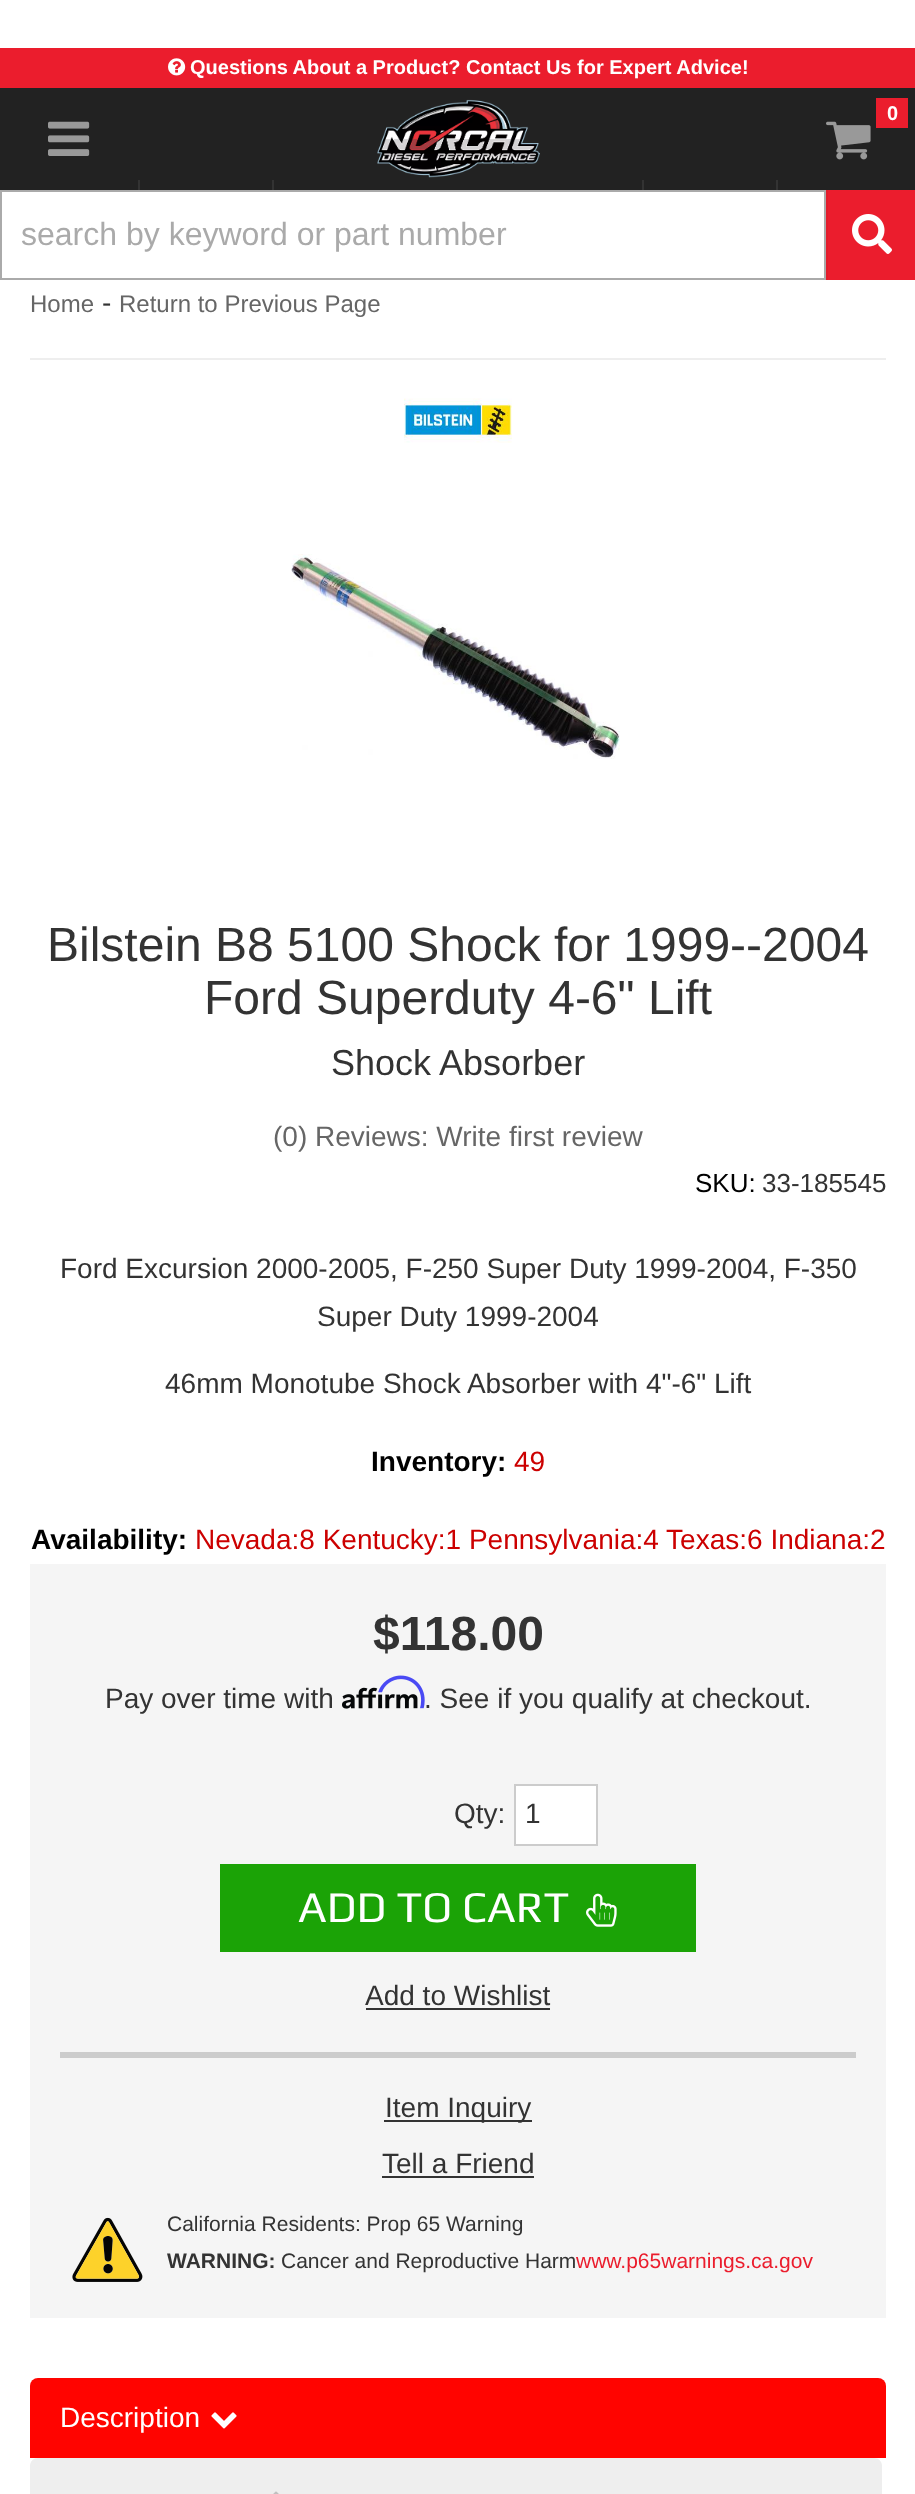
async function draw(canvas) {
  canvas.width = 915
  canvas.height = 2494
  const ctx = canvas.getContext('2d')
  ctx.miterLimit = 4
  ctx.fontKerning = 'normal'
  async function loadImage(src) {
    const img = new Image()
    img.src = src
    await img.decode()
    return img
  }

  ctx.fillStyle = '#fff'
  ctx.fillRect(0, 0, 915, 2494)
  ctx.fillStyle = '#eb1d2d'
  ctx.fillRect(0, 48, 915, 40)
  ctx.drawImage(await loadImage('image0.png'), 168, 58, 18, 18)
  ctx.font = 'bold 20px Liberation Sans'
  ctx.fillStyle = '#fff'
  ctx.fillText('Questions About a Product? Contact Us for Expert Advice!', 190, 74)
  ctx.fillStyle = '#222'
  ctx.fillRect(0, 88, 915, 102)
  ctx.drawImage(await loadImage('image1.png'), 377, 99, 163, 79)
  ctx.fillStyle = '#eb1d2d'
  ctx.fillRect(876, 98, 32, 30)
  ctx.fillStyle = '#fff'
  ctx.fillText('0', 887, 120)
  ctx.drawImage(await loadImage('image2.png'), 826, 121, 45, 39)
  ctx.drawImage(await loadImage('image3.png'), 48, 121, 42, 35)
  ctx.fillStyle = '#333'
  ctx.fillRect(272, 180, 2, 10)
  ctx.fillRect(138, 180, 2, 10)
  ctx.fillRect(776, 180, 2, 10)
  ctx.fillRect(642, 180, 2, 10)
  ctx.save()
  ctx.beginPath()
  ctx.rect(0, 190, 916, 90)
  ctx.clip()
  ctx.fillStyle = '#e21c2b'
  ctx.beginPath()
  ctx.moveTo(-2, 190)
  ctx.lineTo(-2, 284)
  ctx.lineTo(828, 284)
  ctx.lineTo(828, 190)
  ctx.lineTo(826, 190)
  ctx.lineTo(826, 280)
  ctx.lineTo(0, 280)
  ctx.lineTo(0, 190)
  ctx.closePath()
  ctx.fill()
  ctx.restore()
  ctx.strokeStyle = '#aaa'
  ctx.lineWidth = 2
  ctx.strokeRect(1, 191, 824, 88)
  ctx.font = '32px Liberation Sans'
  ctx.fillStyle = '#aaa'
  ctx.fillText('search by keyword or part number', 21, 245)
  ctx.fillStyle = '#eb1d2d'
  ctx.fillRect(828, 190, 87, 90)
  ctx.drawImage(await loadImage('image4.png'), 852, 214, 40, 40)
  ctx.font = '24px Liberation Sans'
  ctx.fillStyle = '#666'
  ctx.fillText('Home', 30, 312)
  ctx.font = '28px Liberation Sans'
  ctx.fillStyle = '#333'
  ctx.fillText('-', 102, 312)
  ctx.font = '24px Liberation Sans'
  ctx.fillStyle = '#666'
  ctx.fillText('Return to Previous Page', 119, 312)
  ctx.fillStyle = '#eee'
  ctx.fillRect(30, 358, 856, 2)
  ctx.drawImage(await loadImage('image5.png'), 404, 398, 108, 45)
  ctx.drawImage(await loadImage('image6.png'), 291, 554, 329, 205)
  ctx.font = '48px Liberation Sans'
  ctx.fillStyle = '#333'
  ctx.fillText('Bilstein B8 5100 Shock for 1999--2004', 47, 961)
  ctx.fillText('Ford Superduty 4-6" Lift', 204, 1014)
  ctx.font = '36px Liberation Sans'
  ctx.fillText('Shock Absorber', 331, 1075)
  ctx.font = '28px Liberation Sans'
  ctx.fillStyle = '#666'
  ctx.fillText('(0) Reviews: Write first review', 273, 1146)
  ctx.font = '26px Liberation Sans'
  ctx.fillStyle = '#000'
  ctx.fillText('SKU:', 695, 1192)
  ctx.fillStyle = '#333'
  ctx.fillText('33-185545', 762, 1192)
  ctx.font = '28px Liberation Sans'
  ctx.fillText('Ford Excursion 2000-2005, F-250 Super Duty 1999-2004, F-350', 60, 1278)
  ctx.fillText('Super Duty 1999-2004', 317, 1326)
  ctx.fillText('46mm Monotube Shock Absorber with 4"-6" Lift', 165, 1393)
  ctx.font = 'bold 28px Liberation Sans'
  ctx.fillStyle = '#000'
  ctx.fillText('Inventory:', 371, 1471)
  ctx.font = '28px Liberation Sans'
  ctx.fillStyle = '#c00'
  ctx.fillText('49', 514, 1471)
  ctx.font = 'bold 28px Liberation Sans'
  ctx.fillStyle = '#000'
  ctx.fillText('Availability:', 31, 1549)
  ctx.font = '28px Liberation Sans'
  ctx.fillStyle = '#c00'
  ctx.fillText('Nevada:8 Kentucky:1 Pennsylvania:4 Texas:6 Indiana:2', 195, 1549)
  ctx.fillStyle = '#f5f5f5'
  ctx.fillRect(30, 1564, 856, 754)
  ctx.font = 'bold 48px Liberation Sans'
  ctx.fillStyle = '#333'
  ctx.fillText('$118.00', 373, 1650)
  ctx.font = '28px Liberation Sans'
  ctx.fillText('Pay over time with', 105, 1708)
  ctx.drawImage(await loadImage('image8.png'), 342, 1687, 76, 22)
  ctx.drawImage(await loadImage('image7.png'), 378, 1675, 47, 34)
  ctx.fillText('. See if you qualify at checkout.', 424, 1708)
  ctx.fillStyle = '#ccc'
  ctx.fillRect(60, 2052, 796, 6)
  ctx.fillStyle = '#333'
  ctx.fillText('Qty:', 454, 1823)
  ctx.fillStyle = '#fff'
  ctx.beginPath()
  ctx.rect(515, 1785, 82, 60)
  ctx.fill()
  ctx.strokeStyle = '#ccc'
  ctx.stroke()
  ctx.fillStyle = '#333'
  ctx.fillText('1', 525, 1823)
  ctx.fillStyle = '#1ba306'
  ctx.fillRect(220, 1864, 476, 88)
  ctx.font = '44px Play'
  ctx.fillStyle = '#fff'
  ctx.fillText('ADD TO CART', 298, 1922)
  ctx.drawImage(await loadImage('image9.png'), 586, 1893, 31, 34)
  ctx.font = '28px Liberation Sans'
  ctx.fillStyle = '#333'
  ctx.fillText('Add to Wishlist', 365, 2005)
  ctx.fillRect(366, 2008, 184, 2)
  ctx.fillRect(384, 2120, 148, 2)
  ctx.fillText('Item Inquiry', 385, 2117)
  ctx.fillText('Tell a Friend', 382, 2173)
  ctx.fillRect(382, 2176, 152, 2)
  ctx.drawImage(await loadImage('image10.png'), 72, 2217, 71, 65)
  ctx.font = '21px Liberation Sans'
  ctx.fillText('California Residents: Prop 65 Warning', 167, 2231)
  ctx.font = 'bold 21px Liberation Sans'
  ctx.fillText('WARNING:', 167, 2268)
  ctx.font = '21px Liberation Sans'
  ctx.fillText('Cancer and Reproductive Harm', 281, 2268)
  ctx.fillStyle = '#eb1d2d'
  ctx.fillText('www.p65warnings.ca.gov', 576, 2268)
  ctx.fillStyle = '#ff0400'
  ctx.beginPath()
  ctx.roundRect(30, 2378, 856, 80, [8, 8, 0, 0])
  ctx.fill()
  ctx.font = '28px Liberation Sans'
  ctx.fillStyle = '#fff'
  ctx.fillText('Description', 60, 2427)
  ctx.drawImage(await loadImage('image11.png'), 211, 2412, 26, 17)
  ctx.fillStyle = '#eee'
  ctx.beginPath()
  ctx.moveTo(38, 2458)
  ctx.lineTo(874, 2458)
  ctx.bezierCurveTo(878.5, 2458, 882, 2461.5, 882, 2466)
  ctx.lineTo(882, 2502)
  ctx.lineTo(30, 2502)
  ctx.lineTo(30, 2466)
  ctx.bezierCurveTo(30, 2461.5, 33.5, 2458, 38, 2458)
  ctx.closePath()
  ctx.fill()
  ctx.drawImage(await loadImage('image12.png'), 273, 2491, 6, 3)
}

draw(document.querySelector('canvas'))
